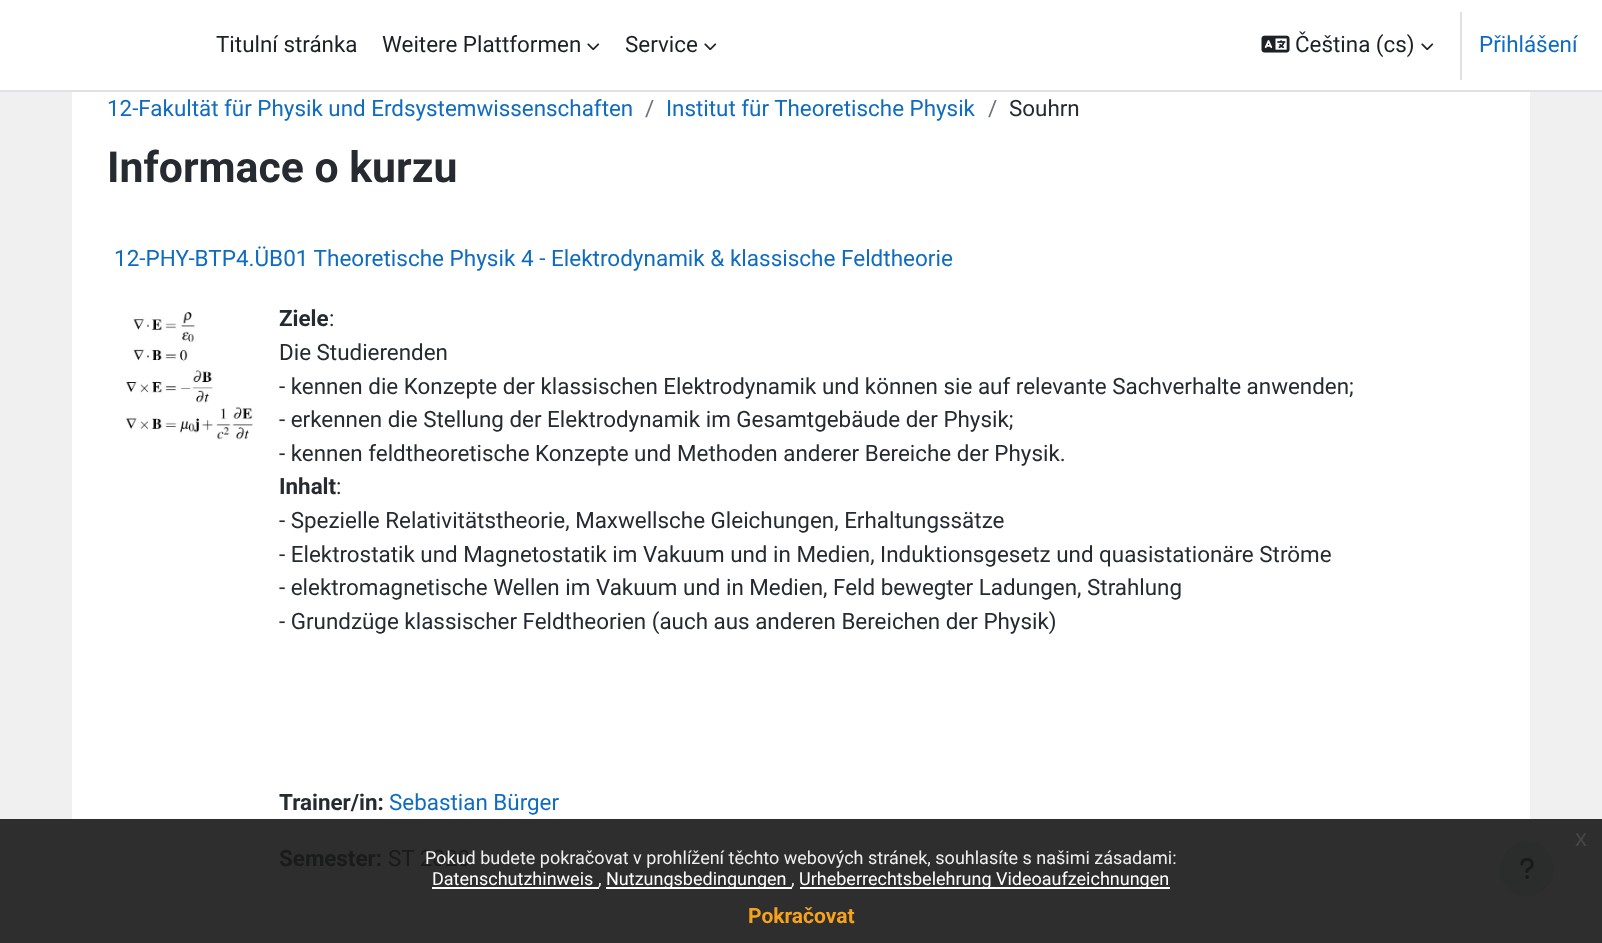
async function draw(canvas) {
  canvas.width = 1602
  canvas.height = 943
  const ctx = canvas.getContext('2d')
  ctx.miterLimit = 4
  ctx.fontKerning = 'normal'
  async function loadImage(src) {
    const img = new Image()
    img.src = src
    await img.decode()
    return img
  }

  ctx.fillStyle = '#f0f0f0'
  ctx.fillRect(0, 0, 1602, 943)
  ctx.fillStyle = '#2e2e2e'
  ctx.fillRect(0, 819, 1602, 124)
  ctx.fillStyle = '#fff'
  ctx.fillRect(0, 0, 1602, 90)
  ctx.fillStyle = '#dee2e6'
  ctx.fillRect(0, 90, 1602, 2)
  ctx.font = '22.4px Roboto'
  ctx.fillStyle = '#1d2125'
  ctx.fillText('Titulní stránka', 216, 52)
  ctx.fillText('Weitere Plattformen', 382, 52)
  ctx.drawImage(await loadImage('image0.png'), 587, 43, 13, 8)
  ctx.fillText('Service', 625, 52)
  ctx.drawImage(await loadImage('image0.png'), 704, 43, 13, 8)
  ctx.drawImage(await loadImage('image1.png'), 1261, 35, 29, 18)
  ctx.fillText('Čeština (cs)', 1295, 52)
  ctx.drawImage(await loadImage('image0.png'), 1421, 43, 13, 8)
  ctx.fillStyle = '#dee2e6'
  ctx.fillRect(1460, 12, 2, 68)
  ctx.fillStyle = '#0f6cbf'
  ctx.fillText('Přihlášení', 1479, 52)
  ctx.fillStyle = '#fff'
  ctx.fillRect(72, 92, 1458, 727)
  ctx.fillStyle = '#0f6cbf'
  ctx.fillText('12-Fakultät für Physik und Erdsystemwissenschaften', 107, 116)
  ctx.fillStyle = '#6a737b'
  ctx.fillText('/', 645, 116)
  ctx.fillStyle = '#0f6cbf'
  ctx.fillText('Institut für Theoretische Physik', 666, 116)
  ctx.fillStyle = '#6a737b'
  ctx.fillText('/', 988, 116)
  ctx.fillStyle = '#262a31'
  ctx.fillText('Souhrn', 1009, 116)
  ctx.font = 'bold 42.75px Roboto'
  ctx.fillText('Informace o kurzu', 107, 182)
  ctx.font = '22.5px Roboto'
  ctx.fillStyle = '#0f6cbf'
  ctx.fillText('12-PHY-BTP4.ÜB01 Theoretische Physik 4 - Elektrodynamik & klassische Feldtheorie', 114, 266)
  ctx.drawImage(await loadImage('image2.png'), 126, 312, 127, 128)
  ctx.font = 'bold 22.4px Roboto'
  ctx.fillStyle = '#262a31'
  ctx.fillText('Ziele', 279, 326)
  ctx.font = '22.4px Roboto'
  ctx.fillText(':', 329, 326)
  ctx.fillText('Die Studierenden', 279, 360)
  ctx.fillText('- kennen die Konzepte der klassischen Elektrodynamik und können sie auf relevante Sachverhalte anwenden;', 279, 394)
  ctx.fillText('- erkennen die Stellung der Elektrodynamik im Gesamtgebäude der Physik;', 279, 427)
  ctx.fillText('- kennen feldtheoretische Konzepte und Methoden anderer Bereiche der Physik.', 279, 461)
  ctx.font = 'bold 22.4px Roboto'
  ctx.fillText('Inhalt', 279, 494)
  ctx.font = '22.4px Roboto'
  ctx.fillText(':', 336, 494)
  ctx.fillText('- Spezielle Relativitätstheorie, Maxwellsche Gleichungen, Erhaltungssätze', 279, 528)
  ctx.fillText('- Elektrostatik und Magnetostatik im Vakuum und in Medien, Induktionsgesetz und quasistationäre Ströme', 279, 562)
  ctx.fillText('- elektromagnetische Wellen im Vakuum und in Medien, Feld bewegter Ladungen, Strahlung', 279, 595)
  ctx.fillText('- Grundzüge klassischer Feldtheorien (auch aus anderen Bereichen der Physik)', 279, 629)
  ctx.font = 'bold 22.4px Roboto'
  ctx.fillText('Trainer/in:', 279, 810)
  ctx.font = '22.4px Roboto'
  ctx.fillStyle = '#0f6cbf'
  ctx.fillText('Sebastian Bürger', 389, 810)
  ctx.font = 'bold 22.4px Roboto'
  ctx.fillStyle = '#1a1b1b'
  ctx.fillText('Semester:', 279, 866)
  ctx.font = '22.4px Roboto'
  ctx.fillText('ST 2020', 388, 866)
  ctx.fillStyle = '#2b2c2c'
  ctx.beginPath()
  ctx.arc(1527, 869, 27, 0, 2 * Math.PI)
  ctx.fill()
  ctx.drawImage(await loadImage('image3.png'), 1520, 858, 14, 21)
  ctx.font = '24px Liberation Sans'
  ctx.fillStyle = '#464646'
  ctx.fillText('x', 1575, 846)
  ctx.font = '18px Roboto'
  ctx.fillStyle = '#efefef'
  ctx.fillText('Pokud budete pokračovat v prohlížení těchto webových stránek, souhlasíte s našimi zásadami:', 425, 864)
  ctx.fillStyle = '#fff'
  ctx.fillText('Datenschutzhinweis', 432, 885)
  ctx.fillRect(432, 887, 167, 2)
  ctx.fillStyle = '#efefef'
  ctx.fillText(',', 598, 885)
  ctx.fillStyle = '#fff'
  ctx.fillRect(606, 887, 186, 2)
  ctx.fillText('Nutzungsbedingungen', 606, 885)
  ctx.fillStyle = '#efefef'
  ctx.fillText(',', 791, 885)
  ctx.fillStyle = '#fff'
  ctx.fillRect(800, 887, 370, 2)
  ctx.fillText('Urheberrechtsbelehrung Videoaufzeichnungen', 799, 885)
  ctx.font = 'bold 21px Roboto'
  ctx.fillStyle = '#f6a21d'
  ctx.fillText('Pokračovat', 748, 923)
}

draw(document.querySelector('canvas'))
